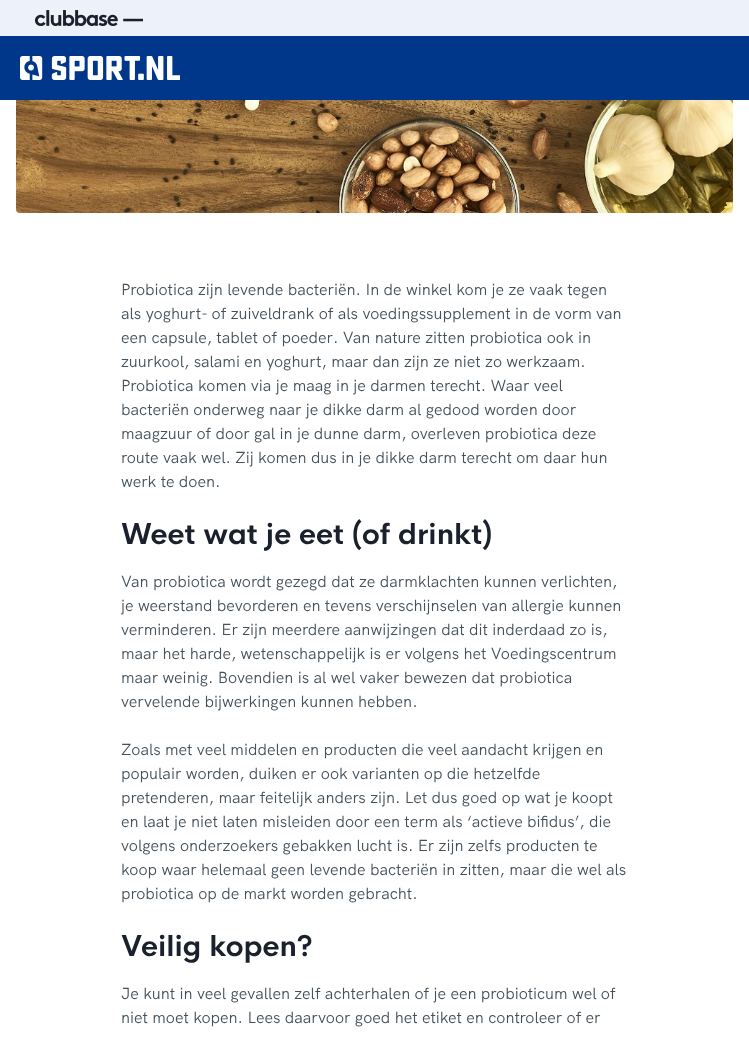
async function draw(canvas) {
  canvas.width = 749
  canvas.height = 1041
  const ctx = canvas.getContext('2d')
  ctx.miterLimit = 4
  ctx.fontKerning = 'normal'
  async function loadImage(src) {
    const img = new Image()
    img.src = src
    await img.decode()
    return img
  }

  ctx.fillStyle = '#fff'
  ctx.fillRect(0, 0, 749, 1041)
  ctx.fillStyle = '#edf2fa'
  ctx.fillRect(0, 0, 749, 36)
  ctx.drawImage(await loadImage('image0.png'), 35, 10, 108, 16)
  ctx.fillStyle = '#00378a'
  ctx.fillRect(0, 36, 749, 64)
  ctx.drawImage(await loadImage('image1.png'), 20, 56, 160, 24)
  ctx.drawImage(await loadImage('image2.png'), 16, 100, 717, 113)
  ctx.font = '16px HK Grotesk'
  ctx.fillStyle = '#44515b'
  ctx.fillText('Probiotica zijn levende bacteriën. In de winkel kom je ze vaak tegen', 121, 295)
  ctx.fillText('als yoghurt- of zuiveldrank of als voedingssupplement in de vorm van', 121, 319)
  ctx.fillText('een capsule, tablet of poeder. Van nature zitten probiotica ook in', 121, 343)
  ctx.fillText('zuurkool, salami en yoghurt, maar dan zijn ze niet zo werkzaam.', 121, 367)
  ctx.fillText('Probiotica komen via je maag in je darmen terecht. Waar veel', 121, 391)
  ctx.fillText('bacteriën onderweg naar je dikke darm al gedood worden door', 121, 415)
  ctx.fillText('maagzuur of door gal in je dunne darm, overleven probiotica deze', 121, 439)
  ctx.fillText('route vaak wel. Zij komen dus in je dikke darm terecht om daar hun', 121, 463)
  ctx.fillText('werk te doen.', 121, 487)
  ctx.font = 'bold 28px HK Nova'
  ctx.fillStyle = '#1a202c'
  ctx.fillText('Weet wat je eet (of drinkt)', 121, 544)
  ctx.font = '16px HK Grotesk'
  ctx.fillStyle = '#44515b'
  ctx.fillText('Van probiotica wordt gezegd dat ze darmklachten kunnen verlichten,', 121, 587)
  ctx.fillText('je weerstand bevorderen en tevens verschijnselen van allergie kunnen', 121, 611)
  ctx.fillText('verminderen. Er zijn meerdere aanwijzingen dat dit inderdaad zo is,', 121, 635)
  ctx.fillText('maar het harde, wetenschappelijk is er volgens het Voedingscentrum', 121, 659)
  ctx.fillText('maar weinig. Bovendien is al wel vaker bewezen dat probiotica', 121, 683)
  ctx.fillText('vervelende bijwerkingen kunnen hebben.', 121, 707)
  ctx.fillText('Zoals met veel middelen en producten die veel aandacht krijgen en', 121, 755)
  ctx.fillText('populair worden, duiken er ook varianten op die hetzelfde', 121, 779)
  ctx.fillText('pretenderen, maar feitelijk anders zijn. Let dus goed op wat je koopt', 121, 803)
  ctx.fillText('en laat je niet laten misleiden door een term als ‘actieve bifidus’, die', 121, 827)
  ctx.fillText('volgens onderzoekers gebakken lucht is. Er zijn zelfs producten te', 121, 851)
  ctx.fillText('koop waar helemaal geen levende bacteriën in zitten, maar die wel als', 121, 875)
  ctx.fillText('probiotica op de markt worden gebracht.', 121, 899)
  ctx.font = 'bold 28px HK Nova'
  ctx.fillStyle = '#1a202c'
  ctx.fillText('Veilig kopen?', 121, 956)
  ctx.font = '16px HK Grotesk'
  ctx.fillStyle = '#44515b'
  ctx.fillText('Je kunt in veel gevallen zelf achterhalen of je een probioticum wel of', 121, 999)
  ctx.fillText('niet moet kopen. Lees daarvoor goed het etiket en controleer of er', 121, 1023)
}

draw(document.querySelector('canvas'))
